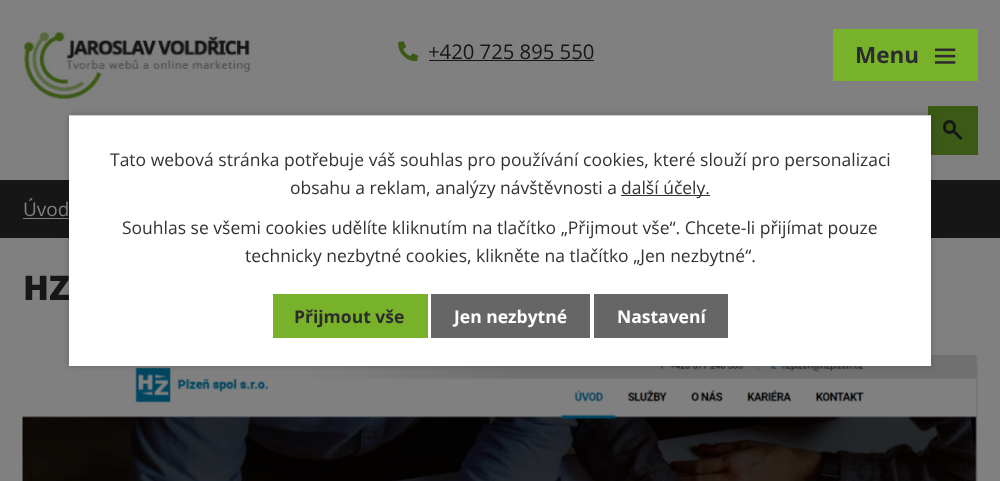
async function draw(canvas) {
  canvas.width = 1000
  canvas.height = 481
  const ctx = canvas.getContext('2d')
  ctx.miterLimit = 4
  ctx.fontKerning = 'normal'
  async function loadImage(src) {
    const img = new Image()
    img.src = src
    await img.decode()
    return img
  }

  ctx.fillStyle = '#808080'
  ctx.fillRect(0, 0, 1000, 481)
  ctx.drawImage(await loadImage('image0.png'), 23, 31, 228, 69)
  ctx.drawImage(await loadImage('image1.png'), 398, 41, 21, 20)
  ctx.font = '20.25px Open Sans'
  ctx.fillStyle = '#161617'
  ctx.fillText('+420 725 895 550', 428, 59)
  ctx.fillRect(429, 60, 165, 1)
  ctx.fillStyle = '#3c5916'
  ctx.fillRect(928, 106, 50, 49)
  ctx.beginPath()
  ctx.roundRect(944.5, 121.5, 10, 11, 5)
  ctx.strokeStyle = '#161617'
  ctx.lineWidth = 3
  ctx.stroke()
  ctx.fillStyle = '#161617'
  ctx.beginPath()
  ctx.moveTo(955, 130.5)
  ctx.lineTo(962.5, 138)
  ctx.lineTo(960.5, 140)
  ctx.lineTo(953, 132.5)
  ctx.closePath()
  ctx.fill()
  ctx.fillStyle = '#78b22b'
  ctx.fillRect(833, 29, 145, 52)
  ctx.font = 'bold 22.5px Open Sans'
  ctx.fillStyle = '#2c2c2e'
  ctx.fillText('Menu', 855, 63)
  ctx.drawImage(await loadImage('image2.png'), 935, 48, 21, 16)
  ctx.fillStyle = '#161617'
  ctx.fillRect(0, 180, 1000, 58)
  ctx.font = '19px Open Sans'
  ctx.fillStyle = '#808080'
  ctx.fillText('Úvod', 23, 216)
  ctx.fillRect(23, 218, 47, 1)
  ctx.font = '800 34px Open Sans'
  ctx.fillStyle = '#161617'
  ctx.fillText('HZ', 23, 300)
  ctx.drawImage(await loadImage('image3.png'), 22, 355, 956, 126)
  ctx.fillStyle = '#00000033'
  ctx.filter = 'blur(3px)'
  ctx.beginPath()
  ctx.rect(69, 115, 862, 251)
  ctx.fill()
  ctx.filter = 'none'
  ctx.fillStyle = '#fff'
  ctx.fillRect(69, 116, 862, 250)
  ctx.fillStyle = '#ccc'
  ctx.fillRect(69, 115, 862, 1)
  ctx.font = '17.5px Open Sans'
  ctx.fillStyle = '#333'
  ctx.fillText('Tato webová stránka potřebuje váš souhlas pro používání cookies, které slouží pro personalizaci', 110, 166)
  ctx.fillText('obsahu a reklam, analýzy návštěvnosti a', 290, 194)
  ctx.fillRect(621, 195, 89, 1)
  ctx.fillText('další účely.', 621, 194)
  ctx.fillText('Souhlas se všemi cookies udělíte kliknutím na tlačítko „Přijmout vše“. Chcete-li přijímat pouze', 122, 234)
  ctx.fillText('technicky nezbytné cookies, klikněte na tlačítko „Jen nezbytné“.', 245, 262)
  ctx.fillStyle = '#78b22b'
  ctx.fillRect(273, 294, 155, 44)
  ctx.font = 'bold 17.5px Open Sans'
  ctx.fillStyle = '#2c2c2e'
  ctx.fillText('Přijmout vše', 294, 323)
  ctx.fillStyle = '#666'
  ctx.fillRect(431, 294, 159, 44)
  ctx.fillStyle = '#fff'
  ctx.fillText('Jen nezbytné', 454, 323)
  ctx.fillStyle = '#666'
  ctx.fillRect(594, 294, 134, 44)
  ctx.fillStyle = '#fff'
  ctx.fillText('Nastavení', 617, 323)
}

draw(document.querySelector('canvas'))
